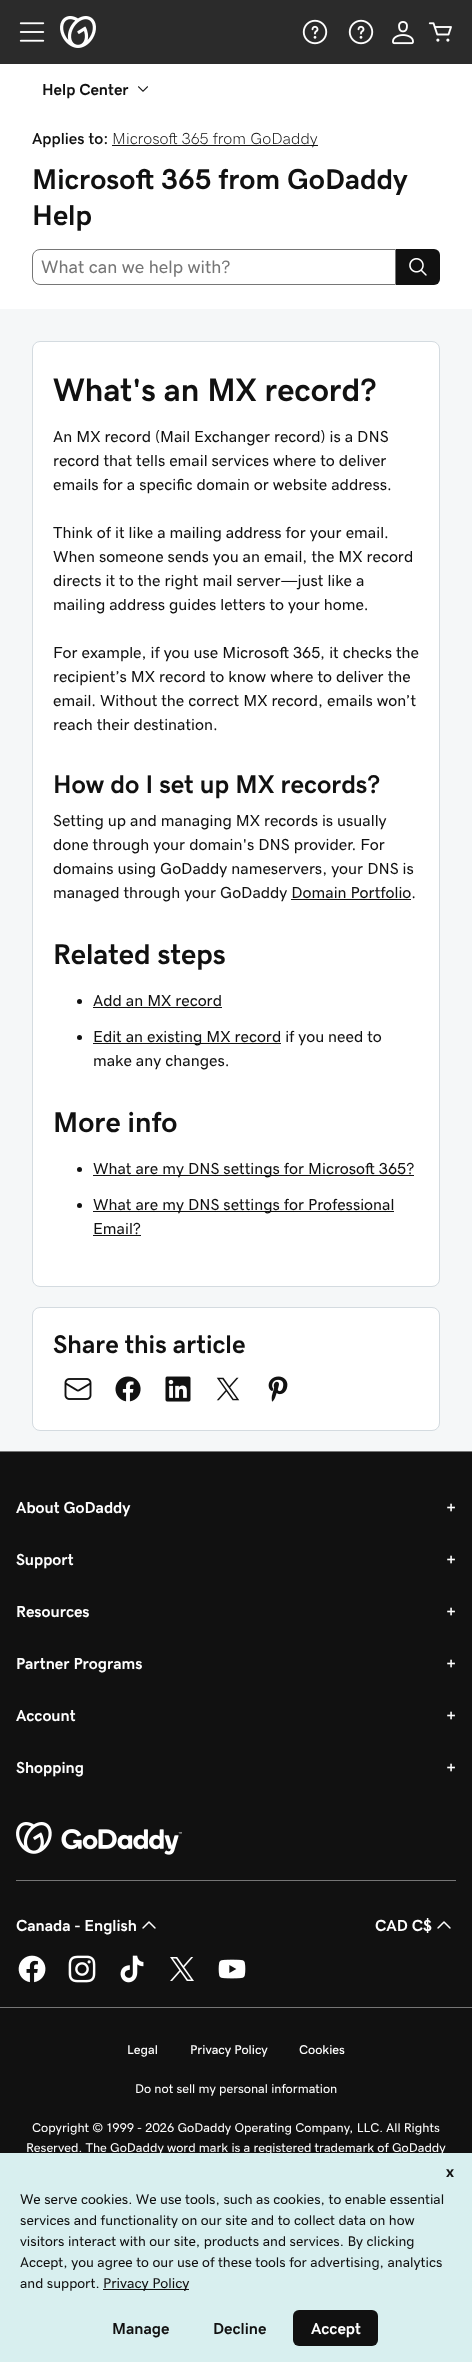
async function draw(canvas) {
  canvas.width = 472
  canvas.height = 2362
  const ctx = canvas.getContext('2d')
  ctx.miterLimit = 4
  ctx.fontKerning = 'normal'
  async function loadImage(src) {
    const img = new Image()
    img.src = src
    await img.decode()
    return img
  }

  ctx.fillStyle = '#fff'
  ctx.fillRect(0, 0, 472, 2362)
  ctx.fillStyle = '#2b2b2b'
  ctx.fillRect(0, 0, 472, 64)
  ctx.drawImage(await loadImage('image0.png'), 19, 22, 26, 20)
  ctx.drawImage(await loadImage('image1.png'), 60, 16, 36, 32)
  ctx.drawImage(await loadImage('image2.png'), 302, 19, 26, 26)
  ctx.drawImage(await loadImage('image2.png'), 348, 19, 26, 26)
  ctx.drawImage(await loadImage('image3.png'), 392, 21, 22, 24)
  ctx.drawImage(await loadImage('image4.png'), 428, 22, 24, 20)
  ctx.font = 'bold 16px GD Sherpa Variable'
  ctx.fillStyle = '#111'
  ctx.fillText('Help Center', 42, 95)
  ctx.drawImage(await loadImage('image5.png'), 138, 86, 10, 6)
  ctx.font = '600 16px GD Sherpa Variable'
  ctx.fillText('Applies to:', 32, 144)
  ctx.fillRect(112, 145, 206, 1)
  ctx.font = '200 16px GD Sherpa Variable'
  ctx.fillText('Microsoft 365 from GoDaddy', 112, 144)
  ctx.font = 'bold 28.8px GD Sherpa Variable'
  ctx.fillText('Microsoft 365 from GoDaddy', 32, 189)
  ctx.fillText('Help', 32, 225)
  ctx.beginPath()
  ctx.roundRect(32.5, 249.5, 363, 35, [7.5, 0, 0, 7.5])
  ctx.strokeStyle = '#767676'
  ctx.stroke()
  ctx.font = '18px GD Sherpa Variable'
  ctx.fillStyle = '#767676'
  ctx.fillText('What can we help with?', 41, 273)
  ctx.fillStyle = '#111'
  ctx.beginPath()
  ctx.roundRect(396, 249, 44, 36, [0, 6, 6, 0])
  ctx.fill()
  ctx.drawImage(await loadImage('image6.png'), 409, 258, 18, 18)
  ctx.fillStyle = '#f5f7f8'
  ctx.fillRect(0, 309, 472, 1142)
  ctx.fillStyle = '#fff'
  ctx.beginPath()
  ctx.roundRect(32.5, 341.5, 407, 945, 7.5)
  ctx.fill()
  ctx.strokeStyle = '#d4dbe0'
  ctx.stroke()
  ctx.font = '800 32.5px GD Sherpa Variable'
  ctx.fillStyle = '#111'
  ctx.fillText('What\'s an MX record?', 53, 401)
  ctx.font = '16px GD Sherpa Variable'
  ctx.fillText('An MX record (Mail Exchanger record) is a DNS', 53, 442)
  ctx.fillText('record that tells email services where to deliver', 53, 466)
  ctx.fillText('emails for a specific domain or website address.', 53, 490)
  ctx.fillText('Think of it like a mailing address for your email.', 53, 538)
  ctx.fillText('When someone sends you an email, the MX record', 53, 562)
  ctx.fillText('directs it to the right mail server—just like a', 53, 586)
  ctx.fillText('mailing address guides letters to your home.', 53, 610)
  ctx.fillText('For example, if you use Microsoft 365, it checks the', 53, 658)
  ctx.fillText('recipient’s MX record to know where to deliver the', 53, 682)
  ctx.fillText('email. Without the correct MX record, emails won’t', 53, 706)
  ctx.fillText('reach their destination.', 53, 730)
  ctx.font = '800 25.6px GD Sherpa Variable'
  ctx.fillText('How do I set up MX records?', 53, 793)
  ctx.font = '16px GD Sherpa Variable'
  ctx.fillText('Setting up and managing MX records is usually', 53, 826)
  ctx.fillText('done through your domain\'s DNS provider. For', 53, 850)
  ctx.fillText('domains using GoDaddy nameservers, your DNS is', 53, 874)
  ctx.fillText('managed through your GoDaddy Domain Portfolio.', 53, 898)
  ctx.fillRect(291, 899, 120, 1)
  ctx.font = 'bold 28.8px GD Sherpa Variable'
  ctx.fillText('Related steps', 53, 964)
  ctx.beginPath()
  ctx.arc(79.5, 1001.5, 2.5, 0, 2 * Math.PI)
  ctx.fill()
  ctx.font = '16px GD Sherpa Variable'
  ctx.fillText('Add an MX record', 93, 1006)
  ctx.fillRect(93, 1007, 129, 1)
  ctx.beginPath()
  ctx.arc(79.5, 1037.5, 2.5, 0, 2 * Math.PI)
  ctx.fill()
  ctx.fillRect(93, 1043, 188, 1)
  ctx.fillText('Edit an existing MX record if you need to', 93, 1042)
  ctx.fillText('make any changes.', 93, 1066)
  ctx.font = 'bold 28.8px GD Sherpa Variable'
  ctx.fillText('More info', 53, 1132)
  ctx.beginPath()
  ctx.arc(79.5, 1169.5, 2.5, 0, 2 * Math.PI)
  ctx.fill()
  ctx.fillRect(93, 1175, 321, 1)
  ctx.font = '16px GD Sherpa Variable'
  ctx.fillText('What are my DNS settings for Microsoft 365?', 93, 1174)
  ctx.beginPath()
  ctx.arc(79.5, 1205.5, 2.5, 0, 2 * Math.PI)
  ctx.fill()
  ctx.fillRect(93, 1211, 301, 1)
  ctx.fillText('What are my DNS settings for Professional', 93, 1210)
  ctx.fillText('Email?', 93, 1234)
  ctx.fillRect(93, 1235, 48, 1)
  ctx.fillStyle = '#fff'
  ctx.beginPath()
  ctx.roundRect(32.5, 1307.5, 407, 123, 7.5)
  ctx.fill()
  ctx.stroke()
  ctx.font = '800 25.6px GD Sherpa Variable'
  ctx.fillStyle = '#111'
  ctx.fillText('Share this article', 53, 1353)
  ctx.drawImage(await loadImage('image7.png'), 64, 1378, 28, 22)
  ctx.drawImage(await loadImage('image8.png'), 115, 1376, 26, 26)
  ctx.drawImage(await loadImage('image9.png'), 165, 1376, 26, 26)
  ctx.drawImage(await loadImage('image10.png'), 216, 1377, 24, 24)
  ctx.drawImage(await loadImage('image11.png'), 268, 1376, 20, 26)
  ctx.fillRect(0, 1452, 472, 555)
  ctx.fillStyle = '#767676'
  ctx.fillRect(0, 1451, 472, 1)
  ctx.font = '800 16px GD Sherpa Variable'
  ctx.fillStyle = '#fff'
  ctx.fillText('About GoDaddy', 16, 1513)
  ctx.fillText('+', 446, 1513)
  ctx.fillText('Support', 16, 1565)
  ctx.fillText('+', 446, 1565)
  ctx.fillText('Resources', 16, 1617)
  ctx.fillText('+', 446, 1617)
  ctx.fillText('Partner Programs', 16, 1669)
  ctx.fillText('+', 446, 1669)
  ctx.fillText('Account', 16, 1721)
  ctx.fillText('+', 446, 1721)
  ctx.fillText('Shopping', 16, 1773)
  ctx.fillText('+', 446, 1773)
  ctx.drawImage(await loadImage('image12.png'), 16, 1822, 166, 33)
  ctx.fillStyle = '#767676'
  ctx.fillRect(16, 1880, 440, 1)
  ctx.font = 'bold 16px GD Sherpa Variable'
  ctx.fillStyle = '#fff'
  ctx.fillText('Canada - English', 16, 1931)
  ctx.drawImage(await loadImage('image13.png'), 142, 1921, 14, 8)
  ctx.fillText('CAD C$', 375, 1931)
  ctx.drawImage(await loadImage('image13.png'), 437, 1921, 14, 8)
  ctx.drawImage(await loadImage('image14.png'), 18, 1955, 28, 28)
  ctx.drawImage(await loadImage('image15.png'), 68, 1955, 28, 28)
  ctx.drawImage(await loadImage('image16.png'), 120, 1955, 24, 28)
  ctx.drawImage(await loadImage('image17.png'), 170, 1957, 24, 24)
  ctx.drawImage(await loadImage('image18.png'), 218, 1959, 28, 20)
  ctx.fillStyle = '#111'
  ctx.fillRect(0, 2008, 472, 145)
  ctx.fillStyle = '#767676'
  ctx.fillRect(0, 2007, 472, 1)
  ctx.font = '500 12.8px GD Sherpa Variable'
  ctx.fillStyle = '#fff'
  ctx.fillText('Legal', 127, 2054)
  ctx.fillText('Privacy Policy', 190, 2054)
  ctx.fillText('Cookies', 299, 2054)
  ctx.font = '12.8px GD Sherpa Variable'
  ctx.fillText('Do not sell my personal information', 135, 2093)
  ctx.fillText('Copyright © 1999 - 2026 GoDaddy Operating Company, LLC. All Rights', 32, 2132)
  ctx.fillText('Reserved. The GoDaddy word mark is a registered trademark of GoDaddy', 26, 2152)
  ctx.fillStyle = '#d8efef'
  ctx.fillRect(0, 2153, 472, 209)
  ctx.font = 'bold 16px "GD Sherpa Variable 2"'
  ctx.fillStyle = '#111'
  ctx.fillText('x', 446, 2177)
  ctx.font = '14px GD Sherpa Variable'
  ctx.fillText('We serve cookies. We use tools, such as cookies, to enable essential', 20, 2204)
  ctx.fillText('services and functionality on our site and to collect data on how', 20, 2225)
  ctx.fillText('visitors interact with our site, products and services. By clicking', 20, 2246)
  ctx.fillText('Accept, you agree to our use of these tools for advertising, analytics', 20, 2267)
  ctx.fillText('and support.', 20, 2288)
  ctx.fillRect(103, 2289, 86, 1)
  ctx.font = '14.25px GD Sherpa Variable'
  ctx.fillText('Privacy Policy', 103, 2288)
  ctx.font = 'bold 16px "GD Sherpa Variable 2"'
  ctx.fillText('Manage', 112, 2334)
  ctx.fillText('Decline', 213, 2334)
  ctx.beginPath()
  ctx.roundRect(293, 2310, 85, 36, 6)
  ctx.fill()
  ctx.fillStyle = '#fff'
  ctx.fillText('Accept', 311, 2334)
}

draw(document.querySelector('canvas'))
